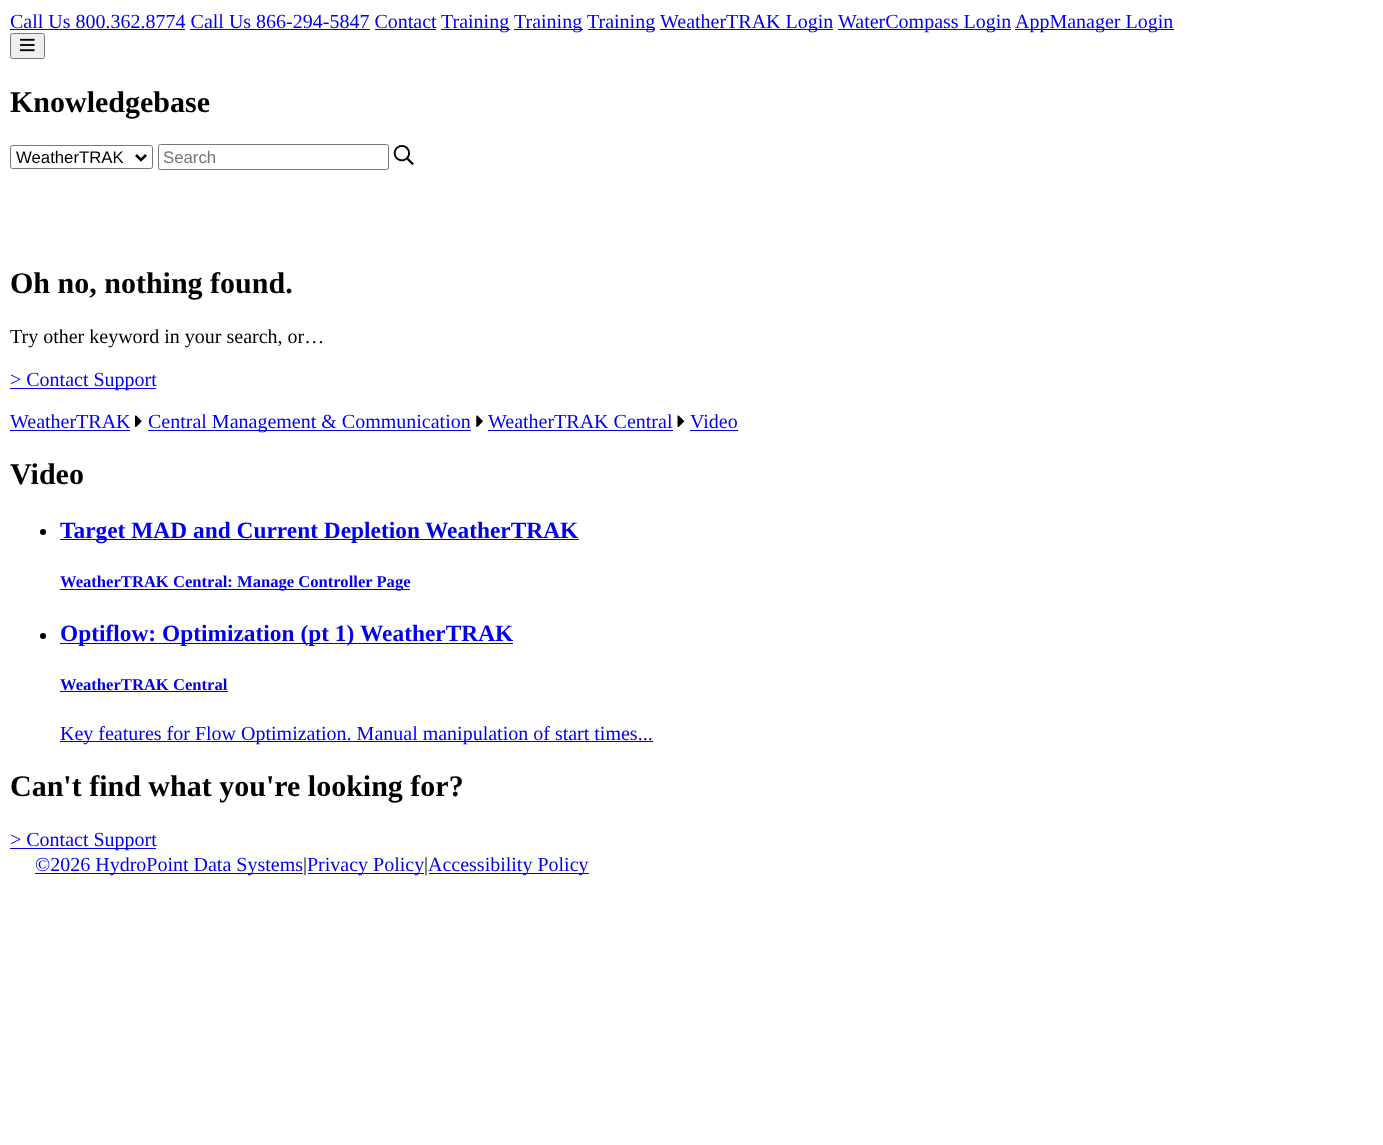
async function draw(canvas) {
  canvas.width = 1383
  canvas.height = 1145
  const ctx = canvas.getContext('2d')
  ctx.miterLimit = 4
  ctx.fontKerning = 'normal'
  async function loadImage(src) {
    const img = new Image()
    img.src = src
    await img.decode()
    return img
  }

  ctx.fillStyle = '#fff'
  ctx.fillRect(0, 0, 1383, 1145)
  ctx.font = '20px Liberation Serif'
  ctx.fillStyle = '#00e'
  ctx.fillText('Call Us 800.362.8774 Call Us 866-294-5847 Contact', 10, 28)
  ctx.fillRect(10, 29, 175, 1)
  ctx.fillRect(441, 29, 69, 1)
  ctx.fillText('Training', 441, 28)
  ctx.fillRect(514, 29, 69, 1)
  ctx.fillText('Training', 514, 28)
  ctx.fillRect(588, 29, 67, 1)
  ctx.fillText('Training', 587, 28)
  ctx.fillRect(660, 29, 173, 1)
  ctx.fillText('WeatherTRAK Login', 660, 28)
  ctx.fillRect(838, 29, 173, 1)
  ctx.fillText('WaterCompass Login', 838, 28)
  ctx.fillRect(1015, 29, 159, 1)
  ctx.fillText('AppManager Login', 1015, 28)
  ctx.fillRect(190, 29, 180, 1)
  ctx.fillRect(375, 29, 61, 1)
  ctx.fillStyle = '#efefef'
  ctx.beginPath()
  ctx.roundRect(10.5, 33.5, 34, 25, 2)
  ctx.fill()
  ctx.strokeStyle = '#767676'
  ctx.stroke()
  ctx.drawImage(await loadImage('image0.png'), 20, 38, 15, 14)
  ctx.font = 'bold 30px Liberation Serif'
  ctx.fillStyle = '#000'
  ctx.fillText('Knowledgebase', 10, 112)
  ctx.beginPath()
  ctx.roundRect(10.5, 145.5, 142, 23, 2)
  ctx.stroke()
  ctx.beginPath()
  ctx.moveTo(136, 155)
  ctx.lineTo(141, 160)
  ctx.lineTo(146, 155)
  ctx.strokeStyle = '#000'
  ctx.lineWidth = 2.5
  ctx.stroke()
  ctx.font = '16.75px Liberation Sans'
  ctx.fillText('WeatherTRAK', 16, 163)
  ctx.beginPath()
  ctx.roundRect(158.5, 144.5, 230, 25, 2)
  ctx.strokeStyle = '#767676'
  ctx.lineWidth = 1
  ctx.stroke()
  ctx.fillStyle = '#757575'
  ctx.fillText('Search', 163, 163)
  ctx.drawImage(await loadImage('image1.png'), 393, 145, 21, 20)
  ctx.font = 'bold 30px Liberation Serif'
  ctx.fillStyle = '#000'
  ctx.fillText('Oh no, nothing found.', 10, 293)
  ctx.font = '20px Liberation Serif'
  ctx.fillText('Try other keyword in your search, or…', 10, 343)
  ctx.fillStyle = '#00e'
  ctx.fillRect(10, 388, 146, 1)
  ctx.fillText('> Contact Support', 10, 386)
  ctx.fillText('WeatherTRAK', 10, 428)
  ctx.fillRect(10, 430, 120, 1)
  ctx.drawImage(await loadImage('image2.png'), 135, 415, 7, 12)
  ctx.fillRect(148, 430, 323, 1)
  ctx.fillText('Central Management & Communication', 148, 428)
  ctx.drawImage(await loadImage('image3.png'), 476, 415, 7, 12)
  ctx.fillText('WeatherTRAK Central', 488, 428)
  ctx.fillRect(488, 430, 185, 1)
  ctx.drawImage(await loadImage('image4.png'), 677, 415, 8, 12)
  ctx.fillText('Video', 690, 428)
  ctx.fillRect(690, 430, 48, 1)
  ctx.font = 'bold 30px Liberation Serif'
  ctx.fillStyle = '#000'
  ctx.fillText('Video', 10, 484)
  ctx.beginPath()
  ctx.arc(43, 532, 3, 0, 2 * Math.PI)
  ctx.fill()
  ctx.fillStyle = '#00e'
  ctx.fillRect(60, 539, 519, 1)
  ctx.font = 'bold 23.4px Liberation Serif'
  ctx.fillText('Target MAD and Current Depletion', 60, 538)
  ctx.fillText('WeatherTRAK', 425, 538)
  ctx.fillRect(60, 589, 350, 1)
  ctx.font = 'bold 16.6px Liberation Serif'
  ctx.fillText('WeatherTRAK Central: Manage Controller Page', 60, 587)
  ctx.fillStyle = '#000'
  ctx.beginPath()
  ctx.arc(43, 636, 3, 0, 2 * Math.PI)
  ctx.fill()
  ctx.fillStyle = '#00e'
  ctx.fillRect(60, 643, 453, 1)
  ctx.font = 'bold 23.4px Liberation Serif'
  ctx.fillText('Optiflow: Optimization (pt 1)', 60, 641)
  ctx.fillText('WeatherTRAK', 360, 641)
  ctx.font = 'bold 16.6px Liberation Serif'
  ctx.fillText('WeatherTRAK Central', 60, 690)
  ctx.fillRect(60, 691, 168, 1)
  ctx.fillRect(60, 741, 593, 1)
  ctx.font = '20px Liberation Serif'
  ctx.fillText('Key features for Flow Optimization. Manual manipulation of start times...', 60, 740)
  ctx.font = 'bold 30px Liberation Serif'
  ctx.fillStyle = '#000'
  ctx.fillText('Can\'t find what you\'re looking for?', 10, 796)
  ctx.fillStyle = '#00e'
  ctx.fillRect(10, 848, 146, 1)
  ctx.font = '20px Liberation Serif'
  ctx.fillText('> Contact Support', 10, 846)
  ctx.fillRect(35, 873, 268, 1)
  ctx.fillText('©2026 HydroPoint Data Systems', 35, 871)
  ctx.fillStyle = '#000'
  ctx.fillText('|', 303, 871)
  ctx.fillStyle = '#00e'
  ctx.fillRect(308, 873, 116, 1)
  ctx.fillText('Privacy Policy', 307, 871)
  ctx.fillStyle = '#000'
  ctx.fillText('|', 424, 871)
  ctx.fillStyle = '#00e'
  ctx.fillRect(429, 873, 160, 1)
  ctx.fillText('Accessibility Policy', 428, 871)
}

draw(document.querySelector('canvas'))
